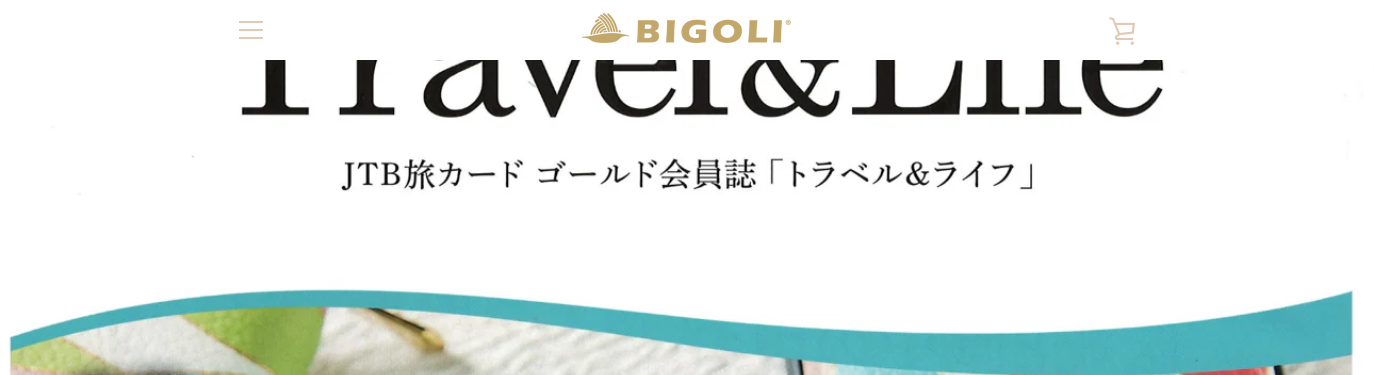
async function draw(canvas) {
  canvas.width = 1374
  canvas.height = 375
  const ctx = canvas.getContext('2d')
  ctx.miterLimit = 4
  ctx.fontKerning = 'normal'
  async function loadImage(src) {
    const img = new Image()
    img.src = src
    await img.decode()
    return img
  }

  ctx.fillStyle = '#fff'
  ctx.fillRect(0, 0, 1374, 375)
  ctx.fillStyle = '#e1c9b4'
  ctx.fillRect(239, 21, 24, 2)
  ctx.fillRect(239, 29, 24, 2)
  ctx.fillRect(239, 37, 24, 2)
  ctx.drawImage(await loadImage('image0.png'), 582, 13, 209, 30)
  ctx.drawImage(await loadImage('image1.png'), 1109, 17, 26, 28)
  ctx.drawImage(await loadImage('image2.png'), 0, 60, 1374, 315)
}

draw(document.querySelector('canvas'))
